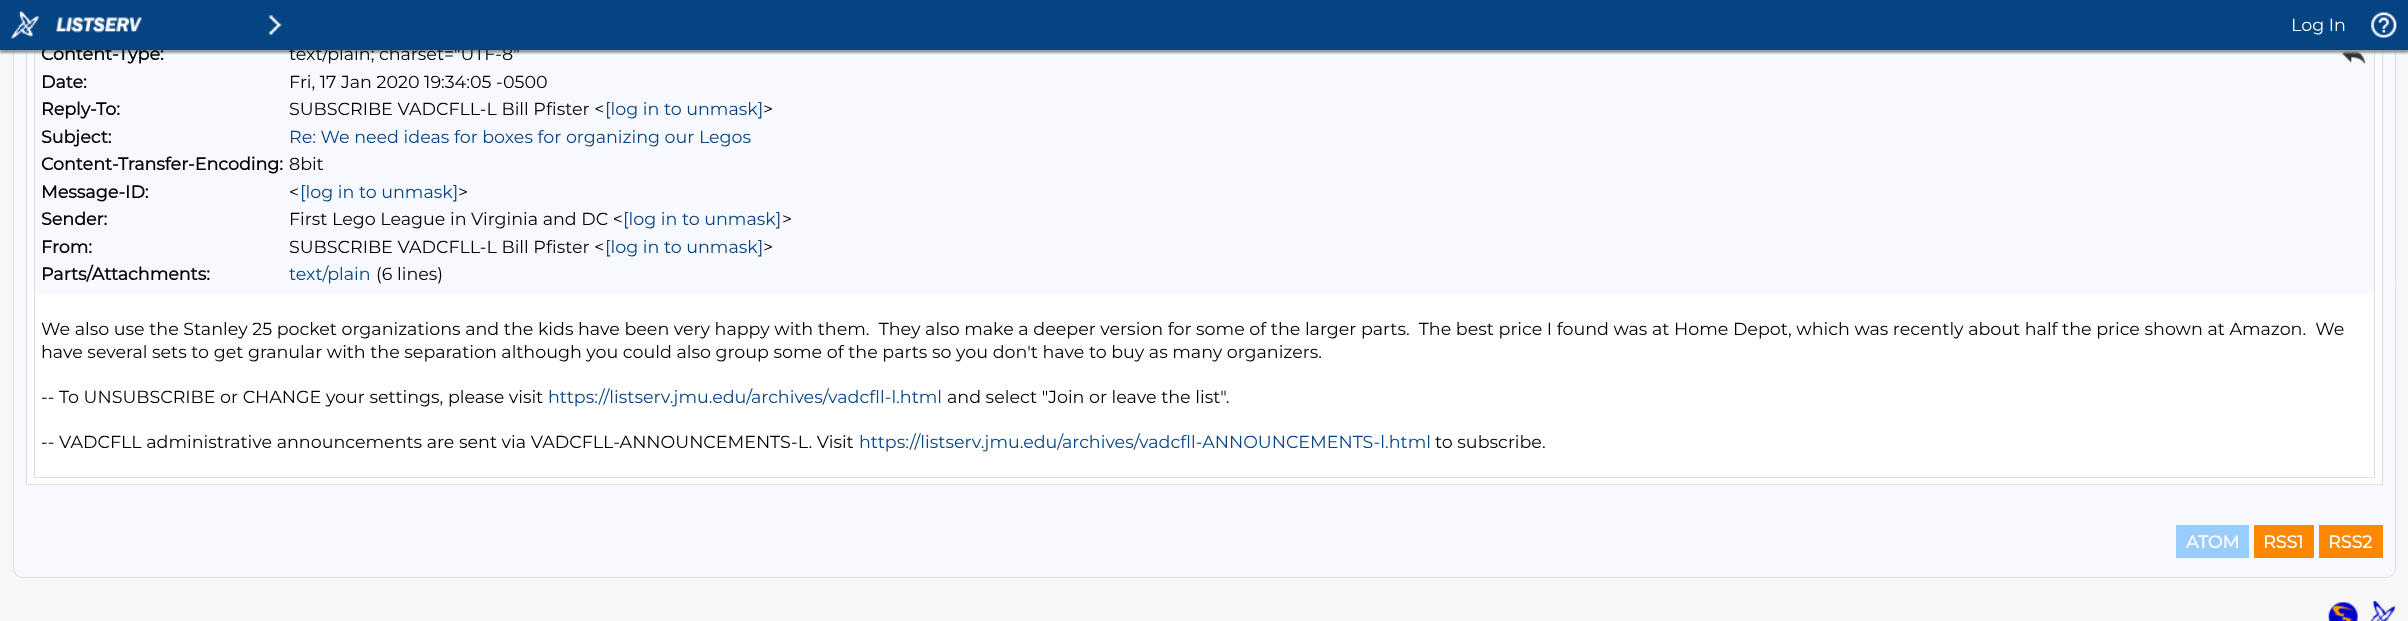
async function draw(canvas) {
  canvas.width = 2408
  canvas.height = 621
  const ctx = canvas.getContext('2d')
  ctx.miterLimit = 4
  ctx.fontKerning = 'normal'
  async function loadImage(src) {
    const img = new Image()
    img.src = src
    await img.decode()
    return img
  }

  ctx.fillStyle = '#f7f7f7'
  ctx.fillRect(0, 0, 2408, 621)
  ctx.fillStyle = '#f7f9fe'
  ctx.beginPath()
  ctx.roundRect(13.5, -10.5, 2382, 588, 9.5)
  ctx.fill()
  ctx.strokeStyle = '#dedede'
  ctx.stroke()
  ctx.strokeRect(26.5, -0.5, 2356, 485)
  ctx.fillStyle = '#fff'
  ctx.fillRect(28, 51, 2353, 433)
  ctx.strokeRect(34.5, 5.5, 2340, 472)
  ctx.fillStyle = '#f7f9fe'
  ctx.fillRect(35, 51, 2339, 243)
  ctx.drawImage(await loadImage('image4.png'), 2342, 51, 24, 13)
  ctx.fillStyle = '#999'
  ctx.filter = 'blur(1px)'
  ctx.beginPath()
  ctx.rect(0, 3, 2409, 50)
  ctx.fill()
  ctx.filter = 'none'
  ctx.font = 'bold 17.5px Montserrat'
  ctx.fillStyle = '#000'
  ctx.fillText('Content-Type:', 41, 60)
  ctx.font = '100 17.5px Montserrat'
  ctx.fillText('text/plain; charset="UTF-8"', 289, 60)
  ctx.fillStyle = '#054483'
  ctx.fillRect(0, 0, 2408, 50)
  ctx.drawImage(await loadImage('image0.png'), 11, 11, 28, 28)
  ctx.drawImage(await loadImage('image1.png'), 56, 17, 87, 16)
  ctx.drawImage(await loadImage('image2.png'), 268, 14, 14, 22)
  ctx.fillStyle = '#fff'
  ctx.fillText('Log In', 2291, 31)
  ctx.drawImage(await loadImage('image3.png'), 2371, 12, 26, 26)
  ctx.font = 'bold 17.5px Montserrat'
  ctx.fillStyle = '#000'
  ctx.fillText('Date:', 41, 88)
  ctx.font = '100 17.5px Montserrat'
  ctx.fillText('Fri, 17 Jan 2020 19:34:05 -0500', 289, 88)
  ctx.font = 'bold 17.5px Montserrat'
  ctx.fillText('Reply-To:', 41, 115)
  ctx.font = '100 17.5px Montserrat'
  ctx.fillText('SUBSCRIBE VADCFLL-L Bill Pfister <', 289, 115)
  ctx.fillStyle = '#054483'
  ctx.fillText('[log in to unmask]', 605, 115)
  ctx.fillStyle = '#000'
  ctx.fillText('>', 763, 115)
  ctx.font = 'bold 17.5px Montserrat'
  ctx.fillText('Subject:', 41, 143)
  ctx.font = '100 17.5px Montserrat'
  ctx.fillStyle = '#054483'
  ctx.fillText('Re: We need ideas for boxes for organizing our Legos', 289, 143)
  ctx.font = 'bold 17.5px Montserrat'
  ctx.fillStyle = '#000'
  ctx.fillText('Content-Transfer-Encoding:', 41, 170)
  ctx.font = '100 17.5px Montserrat'
  ctx.fillText('8bit', 289, 170)
  ctx.font = 'bold 17.5px Montserrat'
  ctx.fillText('Message-ID:', 41, 198)
  ctx.font = '100 17.5px Montserrat'
  ctx.fillText('<', 289, 198)
  ctx.fillStyle = '#054483'
  ctx.fillText('[log in to unmask]', 300, 198)
  ctx.fillStyle = '#000'
  ctx.fillText('>', 458, 198)
  ctx.font = 'bold 17.5px Montserrat'
  ctx.fillText('Sender:', 41, 225)
  ctx.font = '100 17.5px Montserrat'
  ctx.fillText('First Lego League in Virginia and DC <', 289, 225)
  ctx.fillStyle = '#054483'
  ctx.fillText('[log in to unmask]', 623, 225)
  ctx.fillStyle = '#000'
  ctx.fillText('>', 782, 225)
  ctx.font = 'bold 17.5px Montserrat'
  ctx.fillText('From:', 41, 253)
  ctx.font = '100 17.5px Montserrat'
  ctx.fillText('SUBSCRIBE VADCFLL-L Bill Pfister <', 289, 253)
  ctx.fillStyle = '#054483'
  ctx.fillText('[log in to unmask]', 605, 253)
  ctx.fillStyle = '#000'
  ctx.fillText('>', 763, 253)
  ctx.font = 'bold 17.5px Montserrat'
  ctx.fillText('Parts/Attachments:', 41, 280)
  ctx.font = '100 17.5px Montserrat'
  ctx.fillStyle = '#054483'
  ctx.fillText('text/plain', 289, 280)
  ctx.fillStyle = '#000'
  ctx.fillText('(6 lines)', 376, 280)
  ctx.fillText('We also use the Stanley 25 pocket organizations and the kids have been very happy with them.  They also make a deeper version for some of the larger parts.  The best price I found was at Home Depot, which was recently about half the price shown at Amazon.  We', 41, 335)
  ctx.fillText('have several sets to get granular with the separation although you could also group some of the parts so you don\'t have to buy as many organizers.', 41, 358)
  ctx.fillText('-- To UNSUBSCRIBE or CHANGE your settings, please visit', 41, 403)
  ctx.fillStyle = '#054483'
  ctx.fillText('https://listserv.jmu.edu/archives/vadcfll-l.html', 548, 403)
  ctx.fillStyle = '#000'
  ctx.fillText('and select "Join or leave the list".', 947, 403)
  ctx.fillText('-- VADCFLL administrative announcements are sent via VADCFLL-ANNOUNCEMENTS-L. Visit', 41, 448)
  ctx.fillStyle = '#054483'
  ctx.fillText('https://listserv.jmu.edu/archives/vadcfll-ANNOUNCEMENTS-l.html', 859, 448)
  ctx.fillStyle = '#000'
  ctx.fillText('to subscribe.', 1435, 448)
  ctx.fillStyle = '#9cf'
  ctx.fillRect(2176, 525, 73, 33)
  ctx.font = 'bold 17.5px Montserrat'
  ctx.fillStyle = '#fff'
  ctx.fillText('ATOM', 2186, 548)
  ctx.fillStyle = '#f80'
  ctx.fillRect(2254, 525, 60, 33)
  ctx.fillStyle = '#fff'
  ctx.fillText('RSS1', 2263, 548)
  ctx.fillStyle = '#f80'
  ctx.fillRect(2319, 525, 64, 33)
  ctx.fillStyle = '#fff'
  ctx.fillText('RSS2', 2328, 548)
  ctx.drawImage(await loadImage('image5.png'), 2328, 602, 30, 19)
  ctx.drawImage(await loadImage('image6.png'), 2370, 601, 25, 20)
}

draw(document.querySelector('canvas'))
